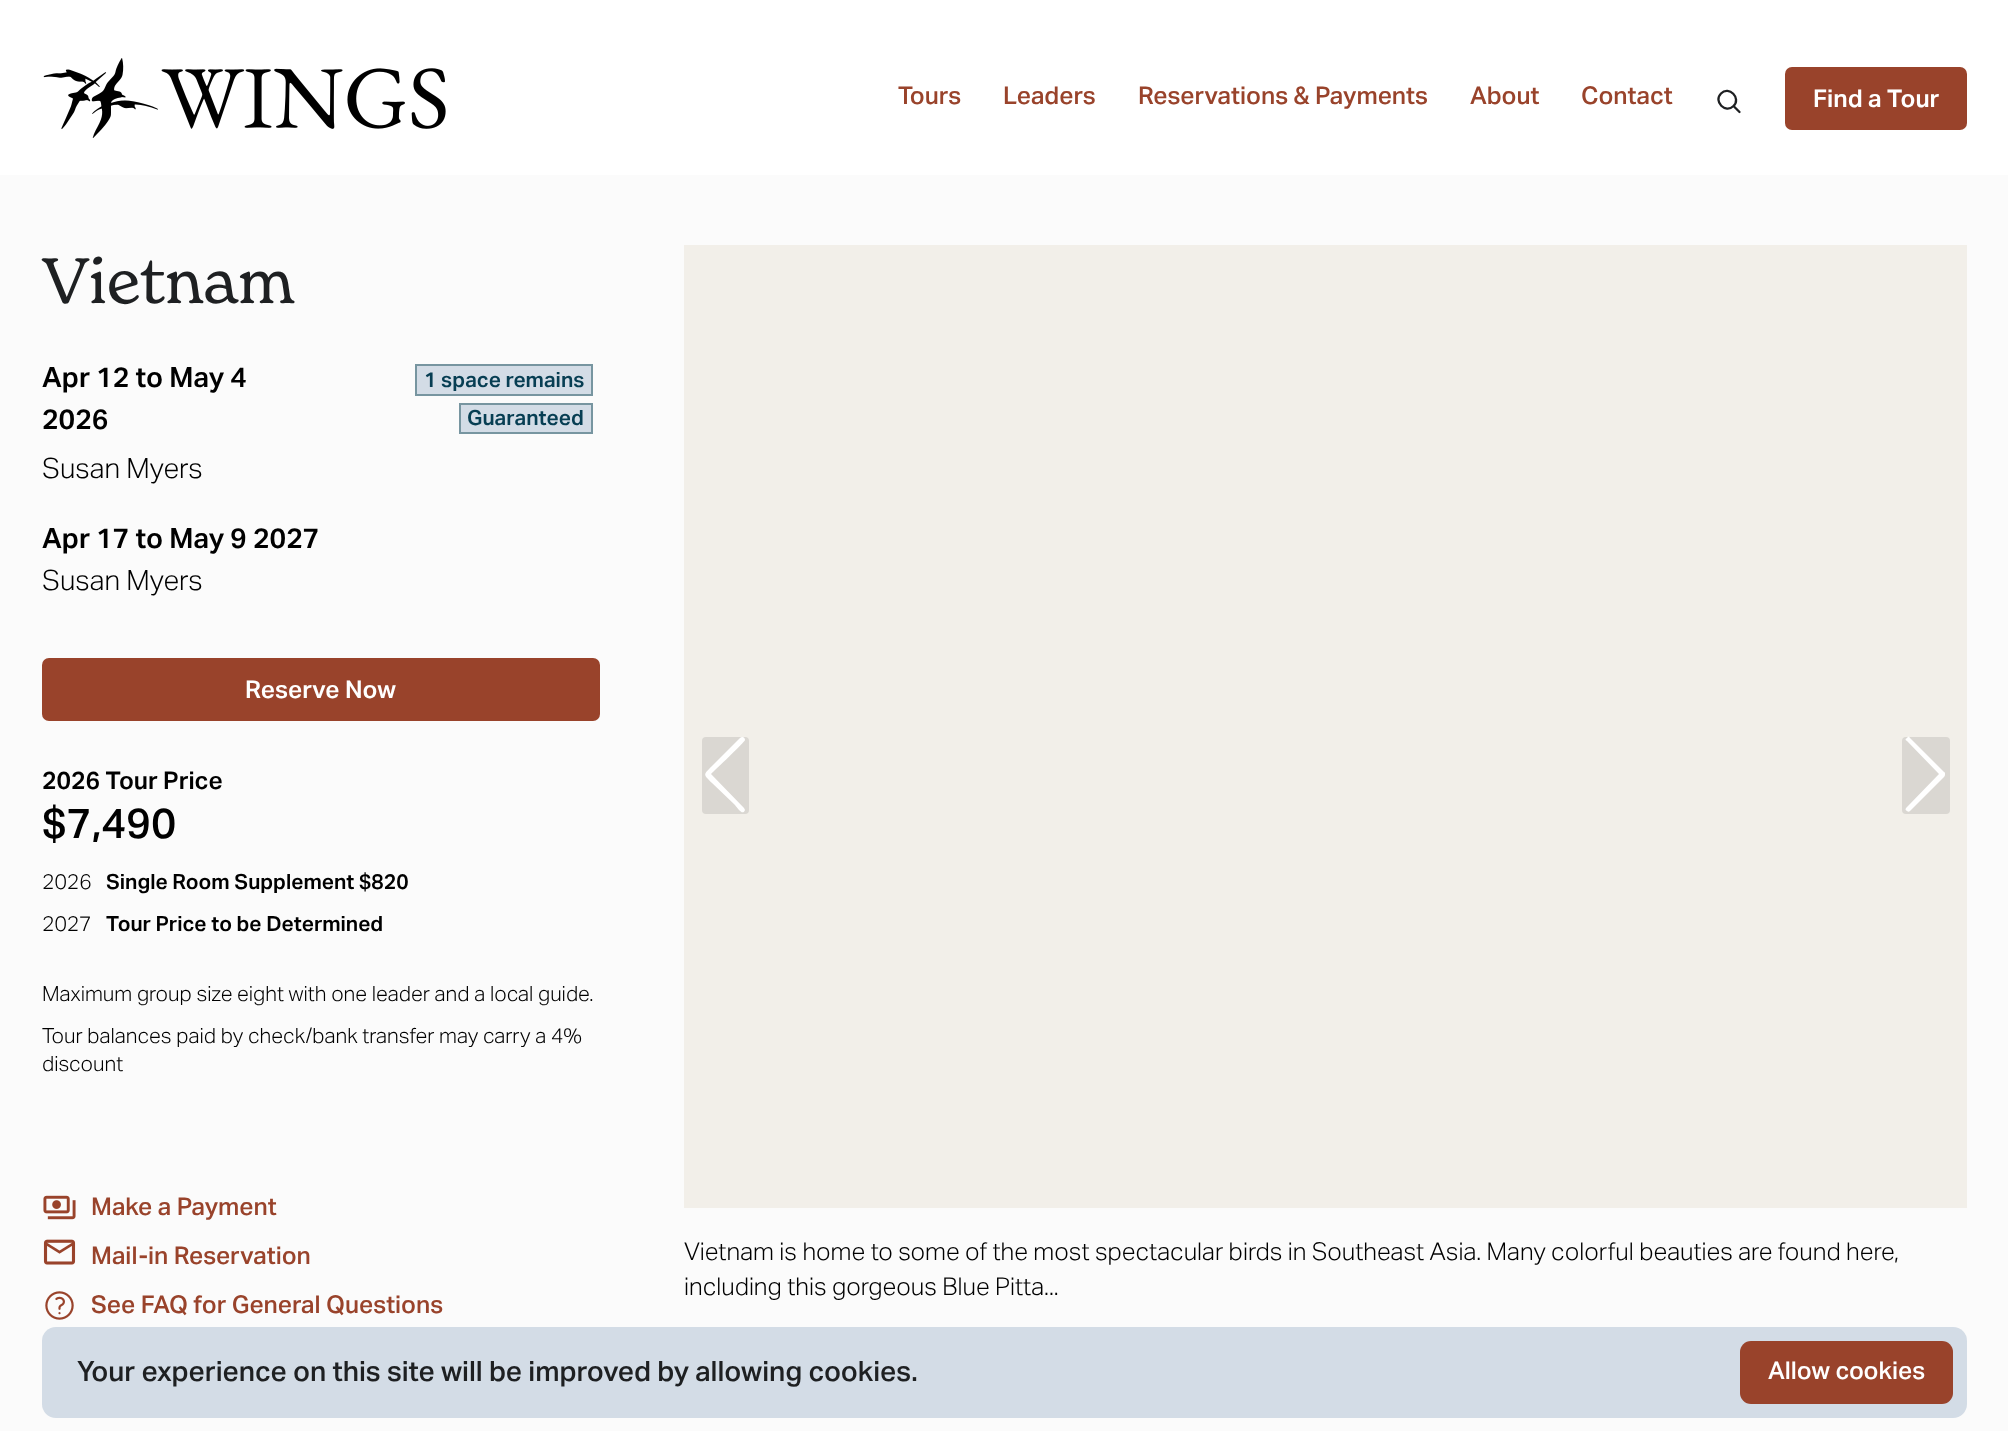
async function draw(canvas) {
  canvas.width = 2008
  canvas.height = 1431
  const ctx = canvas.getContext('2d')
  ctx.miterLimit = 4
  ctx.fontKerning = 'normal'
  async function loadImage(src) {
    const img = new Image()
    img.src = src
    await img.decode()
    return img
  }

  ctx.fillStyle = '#fbfbfb'
  ctx.fillRect(0, 0, 2008, 1431)
  ctx.fillStyle = '#fff'
  ctx.fillRect(0, 0, 2008, 175)
  ctx.drawImage(await loadImage('image0.png'), 43, 58, 115, 80)
  ctx.drawImage(await loadImage('image1.png'), 161, 68, 285, 61)
  ctx.font = '500 24.5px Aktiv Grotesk'
  ctx.fillStyle = '#99432b'
  ctx.fillText('Tours', 898, 104)
  ctx.fillText('Leaders', 1003, 104)
  ctx.fillText('Reservations & Payments', 1138, 104)
  ctx.fillText('About', 1470, 104)
  ctx.fillText('Contact', 1581, 104)
  ctx.beginPath()
  ctx.moveTo(1739.5, 112)
  ctx.lineTo(1733.5, 106)
  ctx.moveTo(1733.5, 106)
  ctx.bezierCurveTo(1741.5, 98, 1729, 85.5, 1721, 93.5)
  ctx.bezierCurveTo(1713, 101.5, 1725.5, 114, 1733.5, 106)
  ctx.closePath()
  ctx.strokeStyle = '#1e2022'
  ctx.lineWidth = 2.3
  ctx.lineCap = 'round'
  ctx.lineJoin = 'round'
  ctx.stroke()
  ctx.beginPath()
  ctx.roundRect(1785, 67, 182, 63, 7)
  ctx.fill()
  ctx.font = '600 24.5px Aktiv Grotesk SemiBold'
  ctx.fillStyle = '#fff'
  ctx.fillText('Find a Tour', 1813, 107)
  ctx.font = '63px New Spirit'
  ctx.fillStyle = '#1e2022'
  ctx.fillText('Vietnam', 42, 303)
  ctx.font = '600 28px Aktiv Grotesk SemiBold'
  ctx.fillStyle = '#000'
  ctx.fillText('Apr 12 to May 4', 42, 387)
  ctx.fillStyle = '#d3dce6'
  ctx.beginPath()
  ctx.rect(416, 365, 176, 30)
  ctx.fill()
  ctx.strokeStyle = '#7795a0'
  ctx.lineWidth = 2
  ctx.lineJoin = 'miter'
  ctx.stroke()
  ctx.font = '600 21px Aktiv Grotesk SemiBold'
  ctx.fillStyle = '#073e53'
  ctx.fillText('1 space remains', 424, 387)
  ctx.fillStyle = '#d3dce6'
  ctx.beginPath()
  ctx.rect(460, 404, 132, 29)
  ctx.fill()
  ctx.stroke()
  ctx.fillStyle = '#073e53'
  ctx.fillText('Guaranteed', 467, 425)
  ctx.font = '600 28px Aktiv Grotesk SemiBold'
  ctx.fillStyle = '#000'
  ctx.fillText('2026', 42, 429)
  ctx.font = '300 28px Aktiv Grotesk'
  ctx.fillText('Susan Myers', 42, 478)
  ctx.font = '600 28px Aktiv Grotesk SemiBold'
  ctx.fillText('Apr 17 to May 9 2027', 42, 548)
  ctx.font = '300 28px Aktiv Grotesk'
  ctx.fillText('Susan Myers', 42, 590)
  ctx.fillStyle = '#99432b'
  ctx.beginPath()
  ctx.roundRect(42, 658, 558, 63, 7)
  ctx.fill()
  ctx.font = '600 24.5px Aktiv Grotesk SemiBold'
  ctx.fillStyle = '#fff'
  ctx.fillText('Reserve Now', 245, 698)
  ctx.fillStyle = '#000'
  ctx.fillText('2026 Tour Price', 42, 789)
  ctx.font = '500 42px Aktiv Grotesk'
  ctx.fillText('$7,490', 42, 838)
  ctx.font = '300 21px Aktiv Grotesk'
  ctx.fillText('2026', 42, 889)
  ctx.font = '600 21px Aktiv Grotesk SemiBold'
  ctx.fillText('Single Room Supplement $820', 106, 889)
  ctx.font = '300 21px Aktiv Grotesk'
  ctx.fillText('2027', 42, 931)
  ctx.font = '600 21px Aktiv Grotesk SemiBold'
  ctx.fillText('Tour Price to be Determined', 106, 931)
  ctx.font = '300 21px Aktiv Grotesk'
  ctx.fillText('Maximum group size eight with one leader and a local guide.', 42, 1001)
  ctx.fillText('Tour balances paid by check/bank transfer may carry a 4%', 42, 1043)
  ctx.fillText('discount', 42, 1071)
  ctx.drawImage(await loadImage('image2.png'), 43, 1195, 33, 25)
  ctx.font = '500 24.5px Aktiv Grotesk'
  ctx.fillStyle = '#99432b'
  ctx.fillText('Make a Payment', 91, 1215)
  ctx.drawImage(await loadImage('image3.png'), 43, 1239, 33, 26)
  ctx.fillText('Mail-in Reservation', 91, 1264)
  ctx.drawImage(await loadImage('image4.png'), 45, 1291, 29, 29)
  ctx.fillText('See FAQ for General Questions', 91, 1313)
  ctx.fillStyle = '#f2efe9'
  ctx.fillRect(684, 245, 1283, 963)
  ctx.fillStyle = '#dad7d2'
  ctx.beginPath()
  ctx.roundRect(702, 737, 47, 77, 4)
  ctx.fill()
  ctx.fillStyle = '#fff'
  ctx.beginPath()
  ctx.moveTo(740, 738)
  ctx.bezierCurveTo(742, 736, 745, 737, 745, 740)
  ctx.bezierCurveTo(745, 742, 715, 770, 711, 774)
  ctx.lineTo(744, 808)
  ctx.lineTo(745, 810)
  ctx.bezierCurveTo(743, 816, 738, 809, 735, 805)
  ctx.lineTo(712, 783)
  ctx.bezierCurveTo(703, 774, 703, 775, 712, 766)
  ctx.closePath()
  ctx.fill()
  ctx.fillStyle = '#dad7d2'
  ctx.beginPath()
  ctx.roundRect(1902, 737, 48, 77, 4)
  ctx.fill()
  ctx.fillStyle = '#fff'
  ctx.beginPath()
  ctx.moveTo(1907, 811)
  ctx.bezierCurveTo(1905, 810, 1905, 809, 1907, 807)
  ctx.lineTo(1939, 774)
  ctx.lineTo(1907, 741)
  ctx.bezierCurveTo(1905, 740, 1905, 739, 1907, 738)
  ctx.bezierCurveTo(1908, 736, 1909, 736, 1910, 738)
  ctx.lineTo(1944, 772)
  ctx.bezierCurveTo(1945, 772, 1945, 773, 1945, 774)
  ctx.bezierCurveTo(1945, 775, 1945, 776, 1944, 777)
  ctx.lineTo(1910, 811)
  ctx.bezierCurveTo(1909, 812, 1908, 812, 1907, 811)
  ctx.closePath()
  ctx.fill()
  ctx.font = '300 24.5px Aktiv Grotesk'
  ctx.fillStyle = '#000'
  ctx.fillText('Vietnam is home to some of the most spectacular birds in Southeast Asia. Many colorful beauties are found here,', 684, 1260)
  ctx.fillText('including this gorgeous Blue Pitta...', 684, 1295)
  ctx.fillStyle = '#d3dce6'
  ctx.beginPath()
  ctx.roundRect(42, 1327, 1925, 91, 14)
  ctx.fill()
  ctx.font = '500 28px Aktiv Grotesk'
  ctx.fillStyle = '#1e2022'
  ctx.fillText('Your experience on this site will be improved by allowing cookies.', 77, 1381)
  ctx.fillStyle = '#99432b'
  ctx.beginPath()
  ctx.roundRect(1740, 1341, 213, 63, 11)
  ctx.fill()
  ctx.font = '500 24.5px Aktiv Grotesk'
  ctx.fillStyle = '#fff'
  ctx.fillText('Allow cookies', 1768, 1379)
}

draw(document.querySelector('canvas'))
